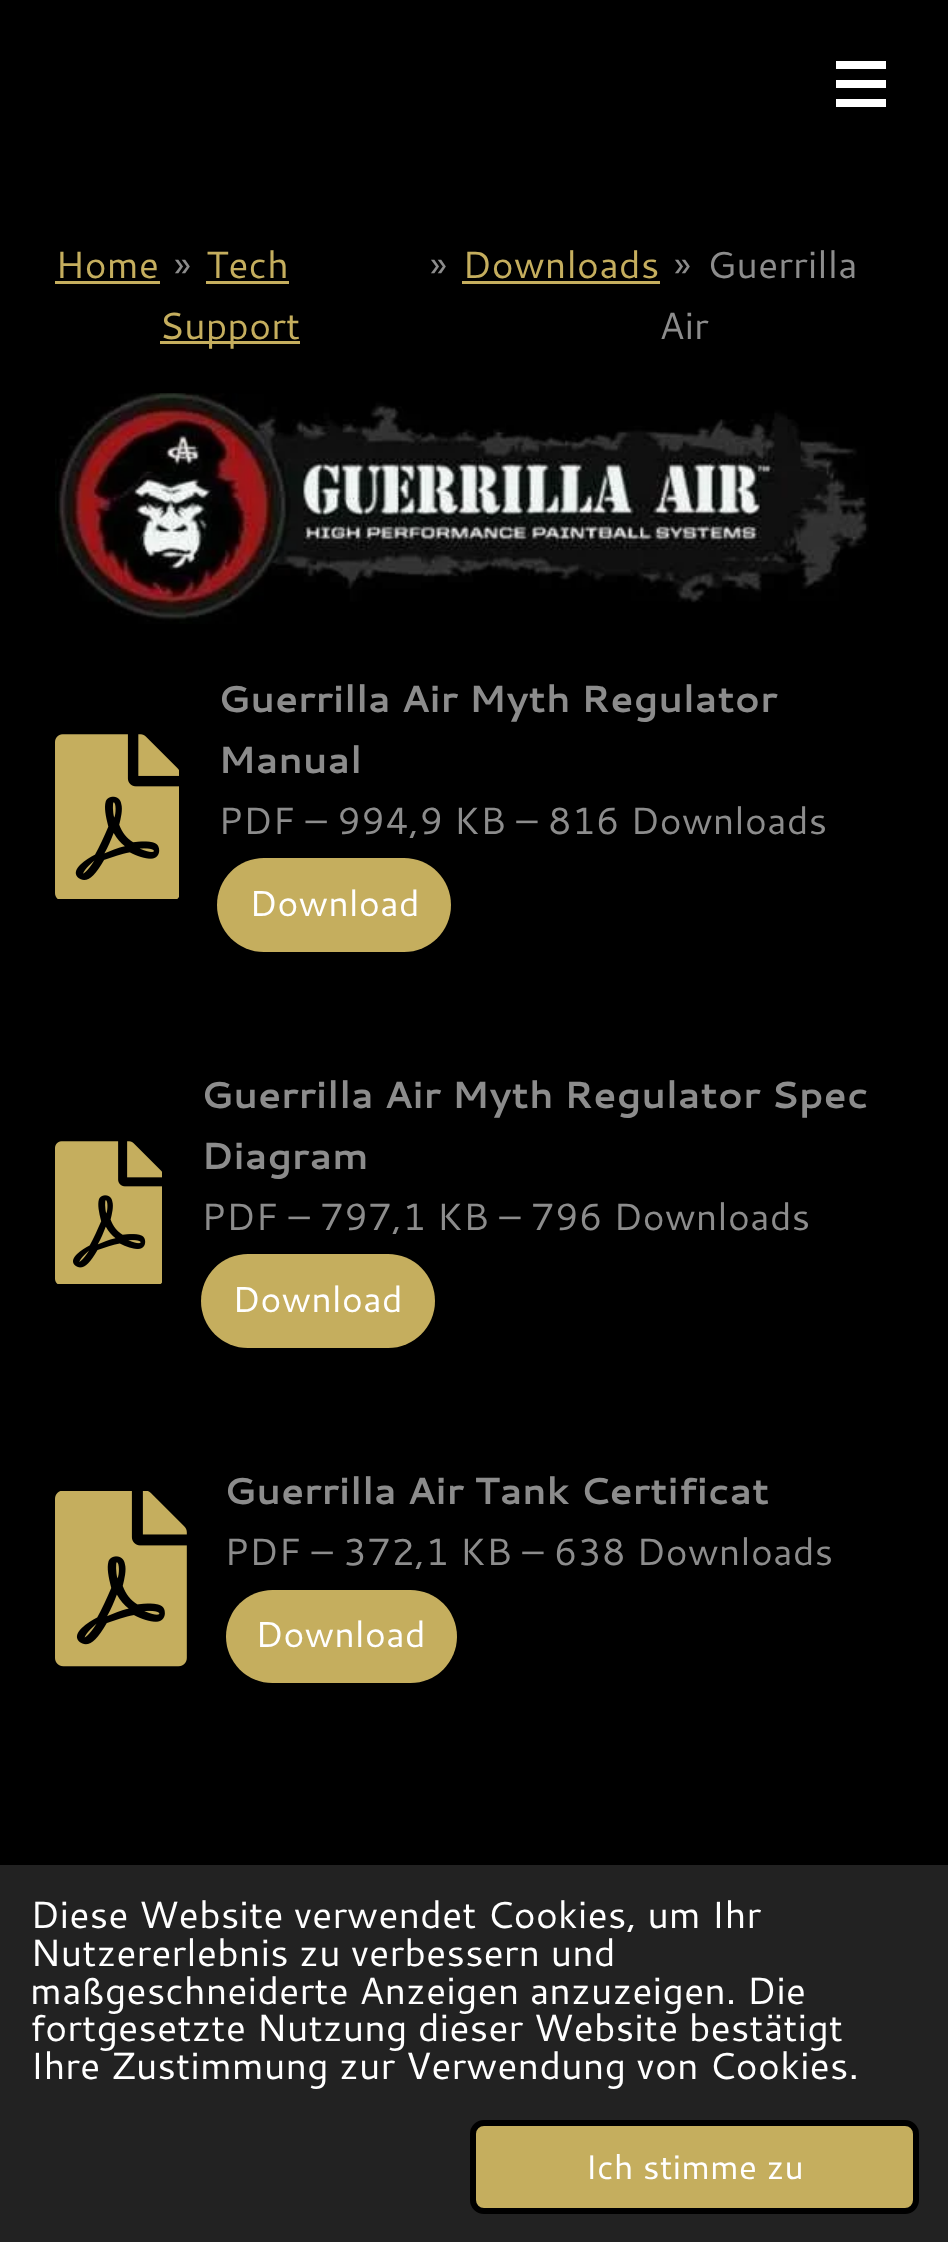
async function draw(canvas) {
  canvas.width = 948
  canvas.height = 2242
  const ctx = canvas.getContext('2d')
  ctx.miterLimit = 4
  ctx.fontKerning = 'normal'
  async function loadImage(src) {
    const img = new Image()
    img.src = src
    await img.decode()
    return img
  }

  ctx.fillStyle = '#000'
  ctx.fillRect(0, 0, 948, 2242)
  ctx.fillStyle = '#fff'
  ctx.fillRect(836, 80, 50, 8)
  ctx.fillRect(836, 61, 50, 8)
  ctx.fillRect(836, 99, 50, 8)
  ctx.font = '37.7px Cantarell'
  ctx.fillStyle = '#c5ae5e'
  ctx.fillText('Home', 55, 278)
  ctx.fillRect(55, 281, 105, 3)
  ctx.fillStyle = '#8c8c8c'
  ctx.fillText('»', 174, 278)
  ctx.fillStyle = '#c5ae5e'
  ctx.fillText('Tech', 206, 278)
  ctx.fillRect(206, 281, 83, 3)
  ctx.fillRect(160, 341, 140, 3)
  ctx.fillText('Support', 159, 339)
  ctx.fillStyle = '#8c8c8c'
  ctx.fillText('»', 430, 278)
  ctx.fillStyle = '#c5ae5e'
  ctx.fillText('Downloads', 462, 278)
  ctx.fillRect(462, 281, 198, 3)
  ctx.fillStyle = '#8c8c8c'
  ctx.fillText('»', 674, 278)
  ctx.fillText('Guerrilla', 707, 278)
  ctx.fillText('Air', 659, 339)
  ctx.drawImage(await loadImage('image0.png'), 55, 393, 814, 231)
  ctx.drawImage(await loadImage('image1.png'), 55, 734, 124, 165)
  ctx.font = 'bold 37.7px Cantarell'
  ctx.fillText('Guerrilla Air Myth Regulator', 218, 712)
  ctx.fillText('Manual', 218, 773)
  ctx.font = '37.7px Cantarell'
  ctx.fillText('PDF – 994,9 KB – 816 Downloads', 218, 834)
  ctx.fillStyle = '#c5ae5e'
  ctx.beginPath()
  ctx.roundRect(217, 858, 234, 94, 47)
  ctx.fill()
  ctx.font = '36px Cantarell'
  ctx.fillStyle = '#fff'
  ctx.fillText('Download', 249, 916)
  ctx.drawImage(await loadImage('image2.png'), 55, 1141, 107, 143)
  ctx.font = 'bold 37.7px Cantarell'
  ctx.fillStyle = '#8c8c8c'
  ctx.fillText('Guerrilla Air Myth Regulator Spec', 201, 1108)
  ctx.fillText('Diagram', 201, 1169)
  ctx.font = '37.7px Cantarell'
  ctx.fillText('PDF – 797,1 KB – 796 Downloads', 201, 1230)
  ctx.fillStyle = '#c5ae5e'
  ctx.beginPath()
  ctx.roundRect(201, 1254, 234, 94, 47)
  ctx.fill()
  ctx.font = '36px Cantarell'
  ctx.fillStyle = '#fff'
  ctx.fillText('Download', 232, 1312)
  ctx.drawImage(await loadImage('image3.png'), 55, 1491, 132, 176)
  ctx.font = 'bold 37.7px Cantarell'
  ctx.fillStyle = '#8c8c8c'
  ctx.fillText('Guerrilla Air Tank Certificat', 224, 1504)
  ctx.font = '37.7px Cantarell'
  ctx.fillText('PDF – 372,1 KB – 638 Downloads', 224, 1565)
  ctx.fillStyle = '#c5ae5e'
  ctx.beginPath()
  ctx.roundRect(226, 1590, 231, 93, 46.5)
  ctx.fill()
  ctx.font = '36px Cantarell'
  ctx.fillStyle = '#fff'
  ctx.fillText('Download', 255, 1647)
  ctx.fillStyle = '#222'
  ctx.fillRect(0, 1865, 948, 377)
  ctx.font = '37.7px Cantarell'
  ctx.fillStyle = '#fff'
  ctx.fillText('Diese Website verwendet Cookies, um Ihr', 30, 1928)
  ctx.fillText('Nutzererlebnis zu verbessern und', 30, 1966)
  ctx.fillText('maßgeschneiderte Anzeigen anzuzeigen. Die', 30, 2004)
  ctx.fillText('fortgesetzte Nutzung dieser Website bestätigt', 30, 2041)
  ctx.fillText('Ihre Zustimmung zur Verwendung von Cookies.', 30, 2079)
  ctx.fillStyle = '#c5ae5e'
  ctx.beginPath()
  ctx.roundRect(473, 2123, 443, 88, 11)
  ctx.fill()
  ctx.strokeStyle = '#000'
  ctx.lineWidth = 6
  ctx.stroke()
  ctx.font = '34px Cantarell'
  ctx.fillStyle = '#fff'
  ctx.fillText('Ich stimme zu', 585, 2179)
}

draw(document.querySelector('canvas'))
